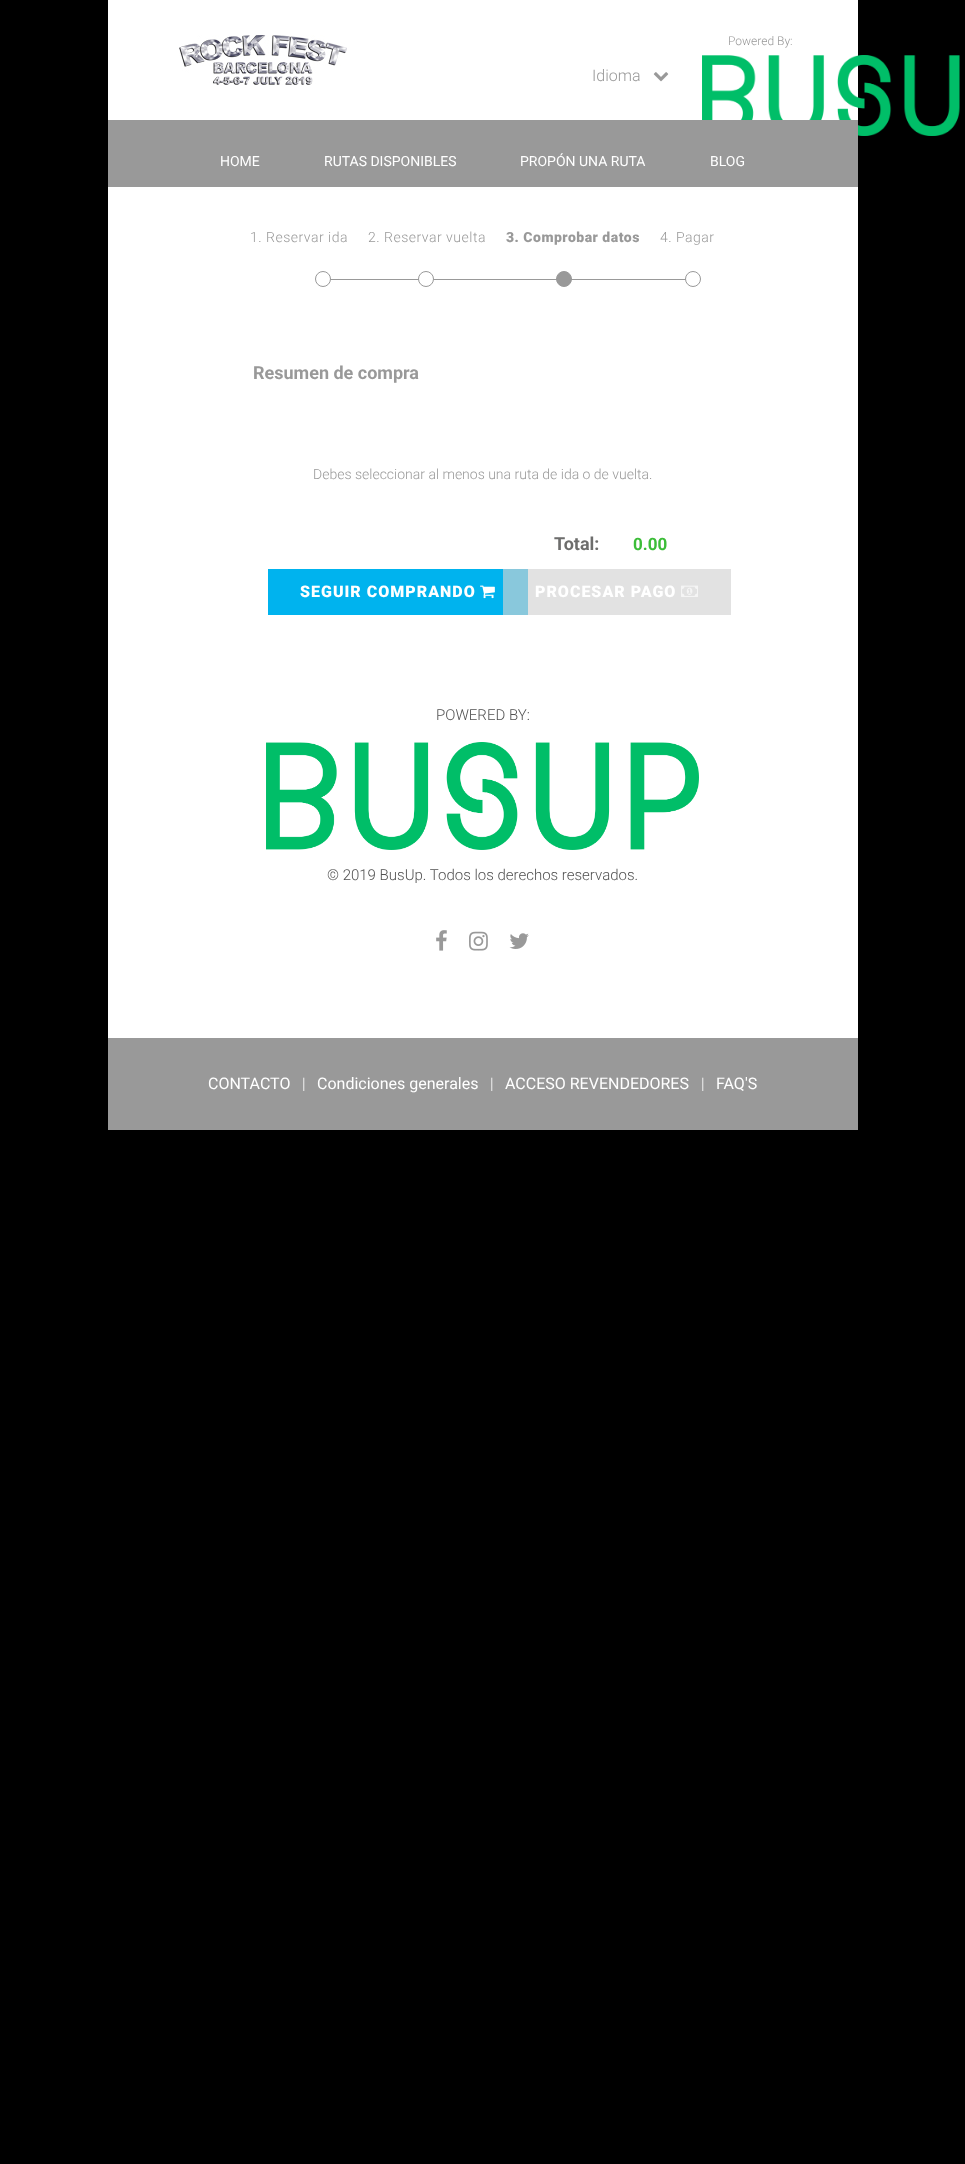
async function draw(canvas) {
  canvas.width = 965
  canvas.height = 2164
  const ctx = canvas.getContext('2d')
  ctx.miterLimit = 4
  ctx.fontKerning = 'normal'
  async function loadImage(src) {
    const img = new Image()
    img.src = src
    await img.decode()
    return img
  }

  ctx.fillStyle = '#000'
  ctx.fillRect(0, 0, 965, 2164)
  ctx.fillStyle = '#fff'
  ctx.fillRect(108, 0, 750, 1038)
  ctx.fillStyle = '#e2e2e2'
  ctx.fillRect(528, 569, 203, 46)
  ctx.drawImage(await loadImage('image0.png'), 179, 35, 168, 50)
  ctx.font = '300 12px Roboto'
  ctx.fillStyle = '#999'
  ctx.fillText('Powered By:', 728, 45)
  ctx.drawImage(await loadImage('image1.png'), 702, 55, 258, 81)
  ctx.font = '300 16px Roboto'
  ctx.fillText('Idioma', 592, 81)
  ctx.drawImage(await loadImage('image2.png'), 653, 72, 16, 10)
  ctx.fillRect(108, 120, 750, 67)
  ctx.font = '14px Roboto'
  ctx.fillStyle = '#fff'
  ctx.fillText('HOME', 220, 166)
  ctx.fillText('RUTAS DISPONIBLES', 324, 166)
  ctx.fillText('PROPÓN UNA RUTA', 520, 166)
  ctx.fillText('BLOG', 710, 166)
  ctx.letterSpacing = '0.5px'
  ctx.font = '300 14px Roboto'
  ctx.fillStyle = '#999'
  ctx.fillText('1. Reservar ida', 250, 242)
  ctx.fillRect(330, 279, 356, 1)
  ctx.fillStyle = '#fff'
  ctx.beginPath()
  ctx.arc(323, 279, 7.5, 0, 2 * Math.PI)
  ctx.fill()
  ctx.strokeStyle = '#999'
  ctx.stroke()
  ctx.fillStyle = '#999'
  ctx.fillText('2. Reservar vuelta', 368, 242)
  ctx.fillStyle = '#fff'
  ctx.beginPath()
  ctx.arc(426, 279, 7.5, 0, 2 * Math.PI)
  ctx.fill()
  ctx.stroke()
  ctx.font = '900 14px Roboto'
  ctx.fillStyle = '#999'
  ctx.fillText('3. Comprobar datos', 506, 242)
  ctx.beginPath()
  ctx.arc(564, 279, 7.5, 0, 2 * Math.PI)
  ctx.fill()
  ctx.stroke()
  ctx.font = '300 14px Roboto'
  ctx.fillText('4. Pagar', 660, 242)
  ctx.fillStyle = '#fff'
  ctx.beginPath()
  ctx.arc(693, 279, 7.5, 0, 2 * Math.PI)
  ctx.fill()
  ctx.stroke()
  ctx.letterSpacing = '0px'
  ctx.font = 'bold 18px Roboto'
  ctx.fillStyle = '#999'
  ctx.fillText('Resumen de compra', 253, 379)
  ctx.font = '300 14px Roboto'
  ctx.fillText('Debes seleccionar al menos una ruta de ida o de vuelta.', 313, 479)
  ctx.fillStyle = '#00b3ee'
  ctx.fillRect(268, 569, 235, 46)
  ctx.fillStyle = '#89c8dc'
  ctx.fillRect(503, 569, 25, 46)
  ctx.letterSpacing = '1px'
  ctx.font = '900 16px Roboto'
  ctx.fillStyle = '#fff'
  ctx.fillText('SEGUIR COMPRANDO', 300, 597)
  ctx.drawImage(await loadImage('image3.png'), 480, 585, 15, 14)
  ctx.letterSpacing = '0px'
  ctx.font = 'bold 18px Roboto'
  ctx.fillStyle = '#6d6d6c'
  ctx.fillText('Total:', 554, 550)
  ctx.font = 'bold 17px Roboto'
  ctx.fillStyle = '#3cbd38'
  ctx.fillText('0.00', 633, 550)
  ctx.letterSpacing = '1px'
  ctx.font = '900 16px Roboto'
  ctx.fillStyle = '#fff'
  ctx.fillText('PROCESAR PAGO', 535, 597)
  ctx.drawImage(await loadImage('image4.png'), 681, 585, 17, 12)
  ctx.letterSpacing = '0px'
  ctx.font = '300 15px Roboto'
  ctx.fillStyle = '#515151'
  ctx.fillText('POWERED BY:', 436, 720)
  ctx.drawImage(await loadImage('image5.png'), 266, 742, 433, 108)
  ctx.fillText('© 2019 BusUp. Todos los derechos reservados.', 327, 880)
  ctx.drawImage(await loadImage('image6.png'), 436, 930, 11, 21)
  ctx.drawImage(await loadImage('image7.png'), 469, 931, 19, 20)
  ctx.drawImage(await loadImage('image8.png'), 509, 933, 20, 16)
  ctx.fillStyle = '#999'
  ctx.fillRect(108, 1038, 750, 92)
  ctx.font = '16px Roboto'
  ctx.fillStyle = '#fff'
  ctx.fillText('CONTACTO', 208, 1089)
  ctx.font = '300 16px Roboto'
  ctx.fillText('|', 302, 1089)
  ctx.font = '16px Roboto'
  ctx.fillText('Condiciones generales', 317, 1089)
  ctx.font = '300 16px Roboto'
  ctx.fillText('|', 490, 1089)
  ctx.font = '16px Roboto'
  ctx.fillText('ACCESO REVENDEDORES', 505, 1089)
  ctx.font = '300 16px Roboto'
  ctx.fillText('|', 701, 1089)
  ctx.font = '16px Roboto'
  ctx.fillText('FAQ\'S', 716, 1089)
}

draw(document.querySelector('canvas'))
